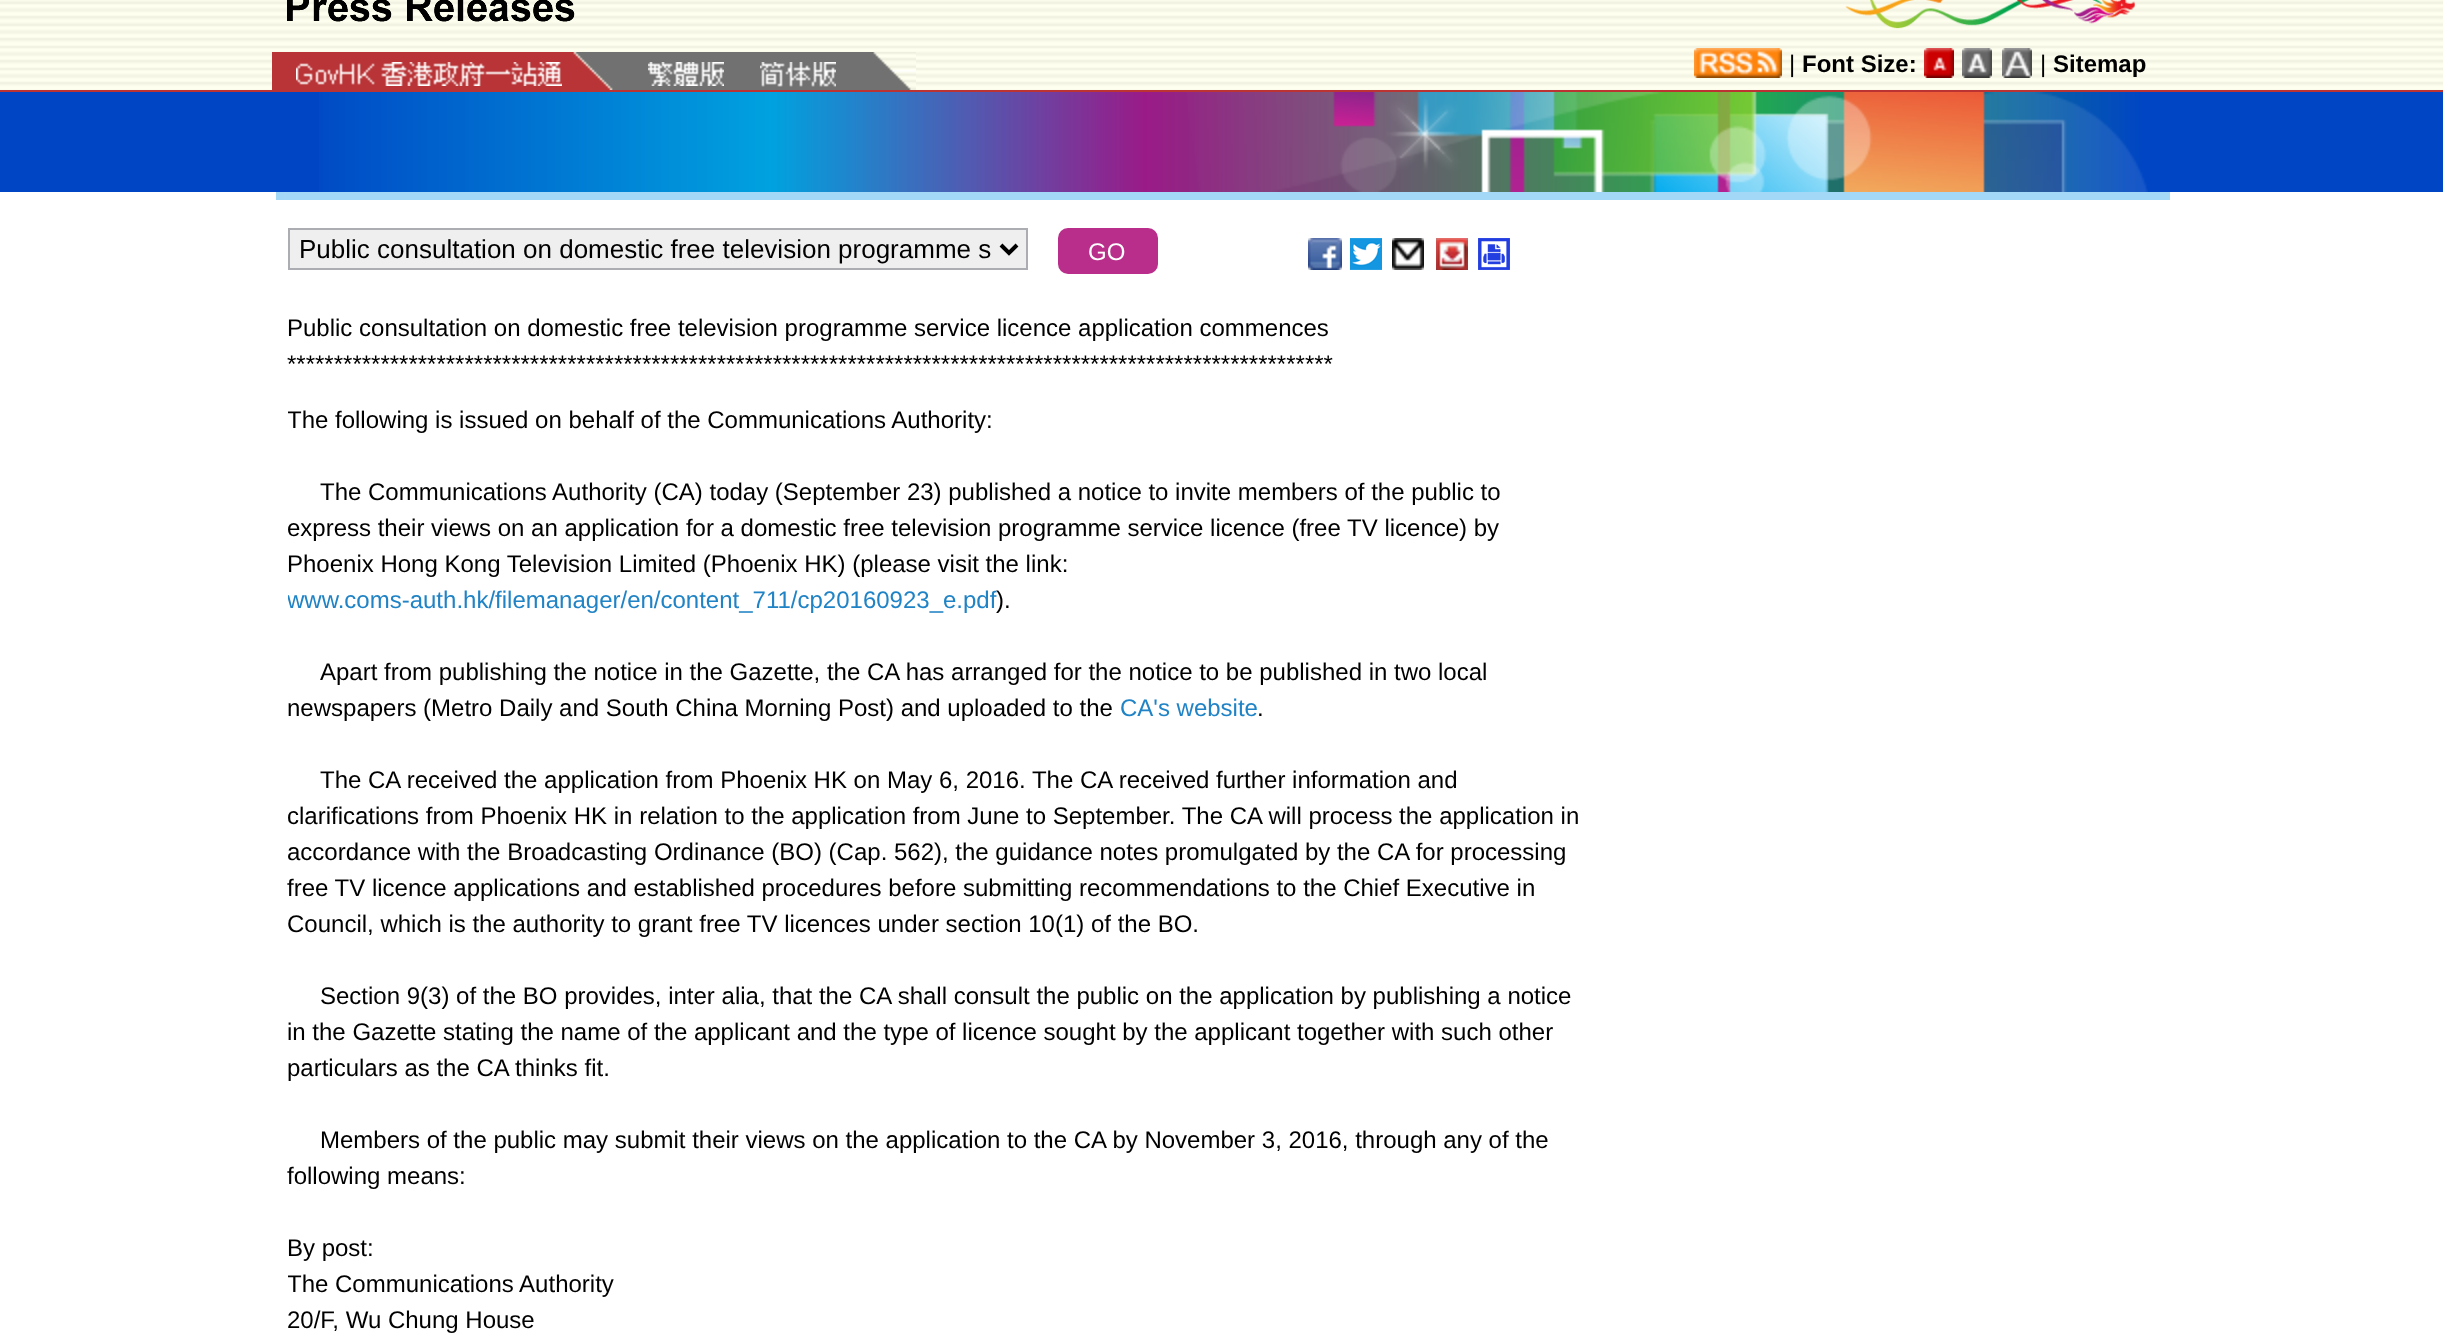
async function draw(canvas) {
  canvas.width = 2443
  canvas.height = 1336
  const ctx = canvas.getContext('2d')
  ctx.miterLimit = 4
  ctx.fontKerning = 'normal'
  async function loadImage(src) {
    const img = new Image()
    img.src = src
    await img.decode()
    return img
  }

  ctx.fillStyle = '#fff'
  ctx.fillRect(0, 0, 2443, 1336)
  ctx.drawImage(await loadImage('image0.png'), 0, 0, 2443, 90)
  ctx.fillStyle = '#b33'
  ctx.fillRect(0, 90, 2443, 2)
  ctx.drawImage(await loadImage('image1.png'), 287, 0, 288, 22)
  ctx.drawImage(await loadImage('image2.png'), 1845, 0, 290, 29)
  ctx.fillStyle = '#717171'
  ctx.fillRect(613, 52, 260, 38)
  ctx.drawImage(await loadImage('image3.png'), 272, 52, 341, 38)
  ctx.drawImage(await loadImage('image4.png'), 296, 62, 266, 24)
  ctx.drawImage(await loadImage('image5.png'), 648, 62, 76, 24)
  ctx.drawImage(await loadImage('image6.png'), 873, 52, 43, 38)
  ctx.drawImage(await loadImage('image7.png'), 760, 62, 76, 25)
  ctx.drawImage(await loadImage('image8.png'), 1694, 48, 88, 30)
  ctx.font = '24px Liberation Sans'
  ctx.fillStyle = '#000'
  ctx.fillText('|', 1789, 72)
  ctx.font = 'bold 24px Liberation Sans'
  ctx.fillText('Font Size:', 1802, 72)
  ctx.drawImage(await loadImage('image9.png'), 1924, 48, 30, 30)
  ctx.drawImage(await loadImage('image10.png'), 1962, 48, 30, 30)
  ctx.drawImage(await loadImage('image11.png'), 2002, 48, 30, 30)
  ctx.font = '24px Liberation Sans'
  ctx.fillText('|', 2040, 72)
  ctx.font = 'bold 24px Liberation Sans'
  ctx.fillText('Sitemap', 2053, 72)
  ctx.fillStyle = '#0046c4'
  ctx.fillRect(0, 92, 2443, 100)
  ctx.drawImage(await loadImage('image12.png'), 319, 92, 1829, 100)
  ctx.fillStyle = '#a3d8f7'
  ctx.fillRect(276, 192, 1894, 8)
  ctx.fillStyle = '#efefef'
  ctx.beginPath()
  ctx.rect(289, 229, 738, 40)
  ctx.fill()
  ctx.strokeStyle = '#abadb3'
  ctx.lineWidth = 2
  ctx.stroke()
  ctx.beginPath()
  ctx.moveTo(1001, 245)
  ctx.lineTo(1009, 253)
  ctx.lineTo(1017, 245)
  ctx.strokeStyle = '#000'
  ctx.lineWidth = 4
  ctx.stroke()
  ctx.font = '26px Liberation Sans'
  ctx.fillStyle = '#000'
  ctx.fillText('Public consultation on domestic free television programme s', 299, 258)
  ctx.fillStyle = '#b82e8a'
  ctx.beginPath()
  ctx.roundRect(1058, 228, 100, 46, 10)
  ctx.fill()
  ctx.font = '24px Liberation Sans'
  ctx.fillStyle = '#fff'
  ctx.fillText('GO', 1088, 260)
  ctx.drawImage(await loadImage('image13.png'), 1308, 238, 34, 32)
  ctx.drawImage(await loadImage('image14.png'), 1350, 238, 32, 32)
  ctx.drawImage(await loadImage('image15.png'), 1392, 238, 32, 32)
  ctx.drawImage(await loadImage('image16.png'), 1436, 238, 32, 32)
  ctx.drawImage(await loadImage('image17.png'), 1478, 238, 32, 32)
  ctx.fillStyle = '#000'
  ctx.fillText('Public consultation on domestic free television programme service licence application commences', 287, 336)
  ctx.fillText('*****************************************************************************', 287, 372)
  ctx.fillText('***********************************', 1006, 372)
  ctx.save()
  ctx.beginPath()
  ctx.rect(288, 228, 1300, 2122)
  ctx.clip()
  ctx.fillText('The following is issued on behalf of the Communications Authority:', 287, 428)
  ctx.restore()
  ctx.fillText('The Communications Authority (CA) today (September 23) published a notice to invite members of the public to', 320, 500)
  ctx.fillText('express their views on an application for a domestic free television programme service licence (free TV licence) by', 287, 536)
  ctx.fillText('Phoenix Hong Kong Television Limited (Phoenix HK) (please visit the link:', 287, 572)
  ctx.save()
  ctx.beginPath()
  ctx.rect(288, 228, 1300, 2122)
  ctx.clip()
  ctx.fillStyle = '#2083c5'
  ctx.fillText('www.coms-auth.hk/filemanager/en/content_711/cp20160923_e.pdf', 287, 608)
  ctx.restore()
  ctx.fillText(').', 996, 608)
  ctx.fillText('Apart from publishing the notice in the Gazette, the CA has arranged for the notice to be published in two local', 320, 680)
  ctx.fillText('newspapers (Metro Daily and South China Morning Post) and uploaded to the', 287, 716)
  ctx.fillStyle = '#2083c5'
  ctx.fillText('CA\'s website', 1120, 716)
  ctx.fillStyle = '#000'
  ctx.fillText('.', 1257, 716)
  ctx.fillText('The CA received the application from Phoenix HK on May 6, 2016. The CA received further information and', 320, 788)
  ctx.fillText('clarifications from Phoenix HK in relation to the application from June to September. The CA will process the application in', 287, 824)
  ctx.fillText('accordance with the Broadcasting Ordinance (BO) (Cap. 562), the guidance notes promulgated by the CA for processing', 287, 860)
  ctx.fillText('free TV licence applications and established procedures before submitting recommendations to the Chief Executive in', 287, 896)
  ctx.fillText('Council, which is the authority to grant free TV licences under section 10(1) of the BO.', 287, 932)
  ctx.fillText('Section 9(3) of the BO provides, inter alia, that the CA shall consult the public on the application by publishing a notice', 320, 1004)
  ctx.fillText('in the Gazette stating the name of the applicant and the type of licence sought by the applicant together with such other', 287, 1040)
  ctx.fillText('particulars as the CA thinks fit.', 287, 1076)
  ctx.fillText('Members of the public may submit their views on the application to the CA by November 3, 2016, through any of the', 320, 1148)
  ctx.fillText('following means:', 287, 1184)
  ctx.fillText('By post:', 287, 1256)
  ctx.save()
  ctx.beginPath()
  ctx.rect(288, 228, 1300, 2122)
  ctx.clip()
  ctx.fillText('The Communications Authority', 287, 1292)
  ctx.restore()
  ctx.fillText('20/F, Wu Chung House', 287, 1328)
}

draw(document.querySelector('canvas'))
